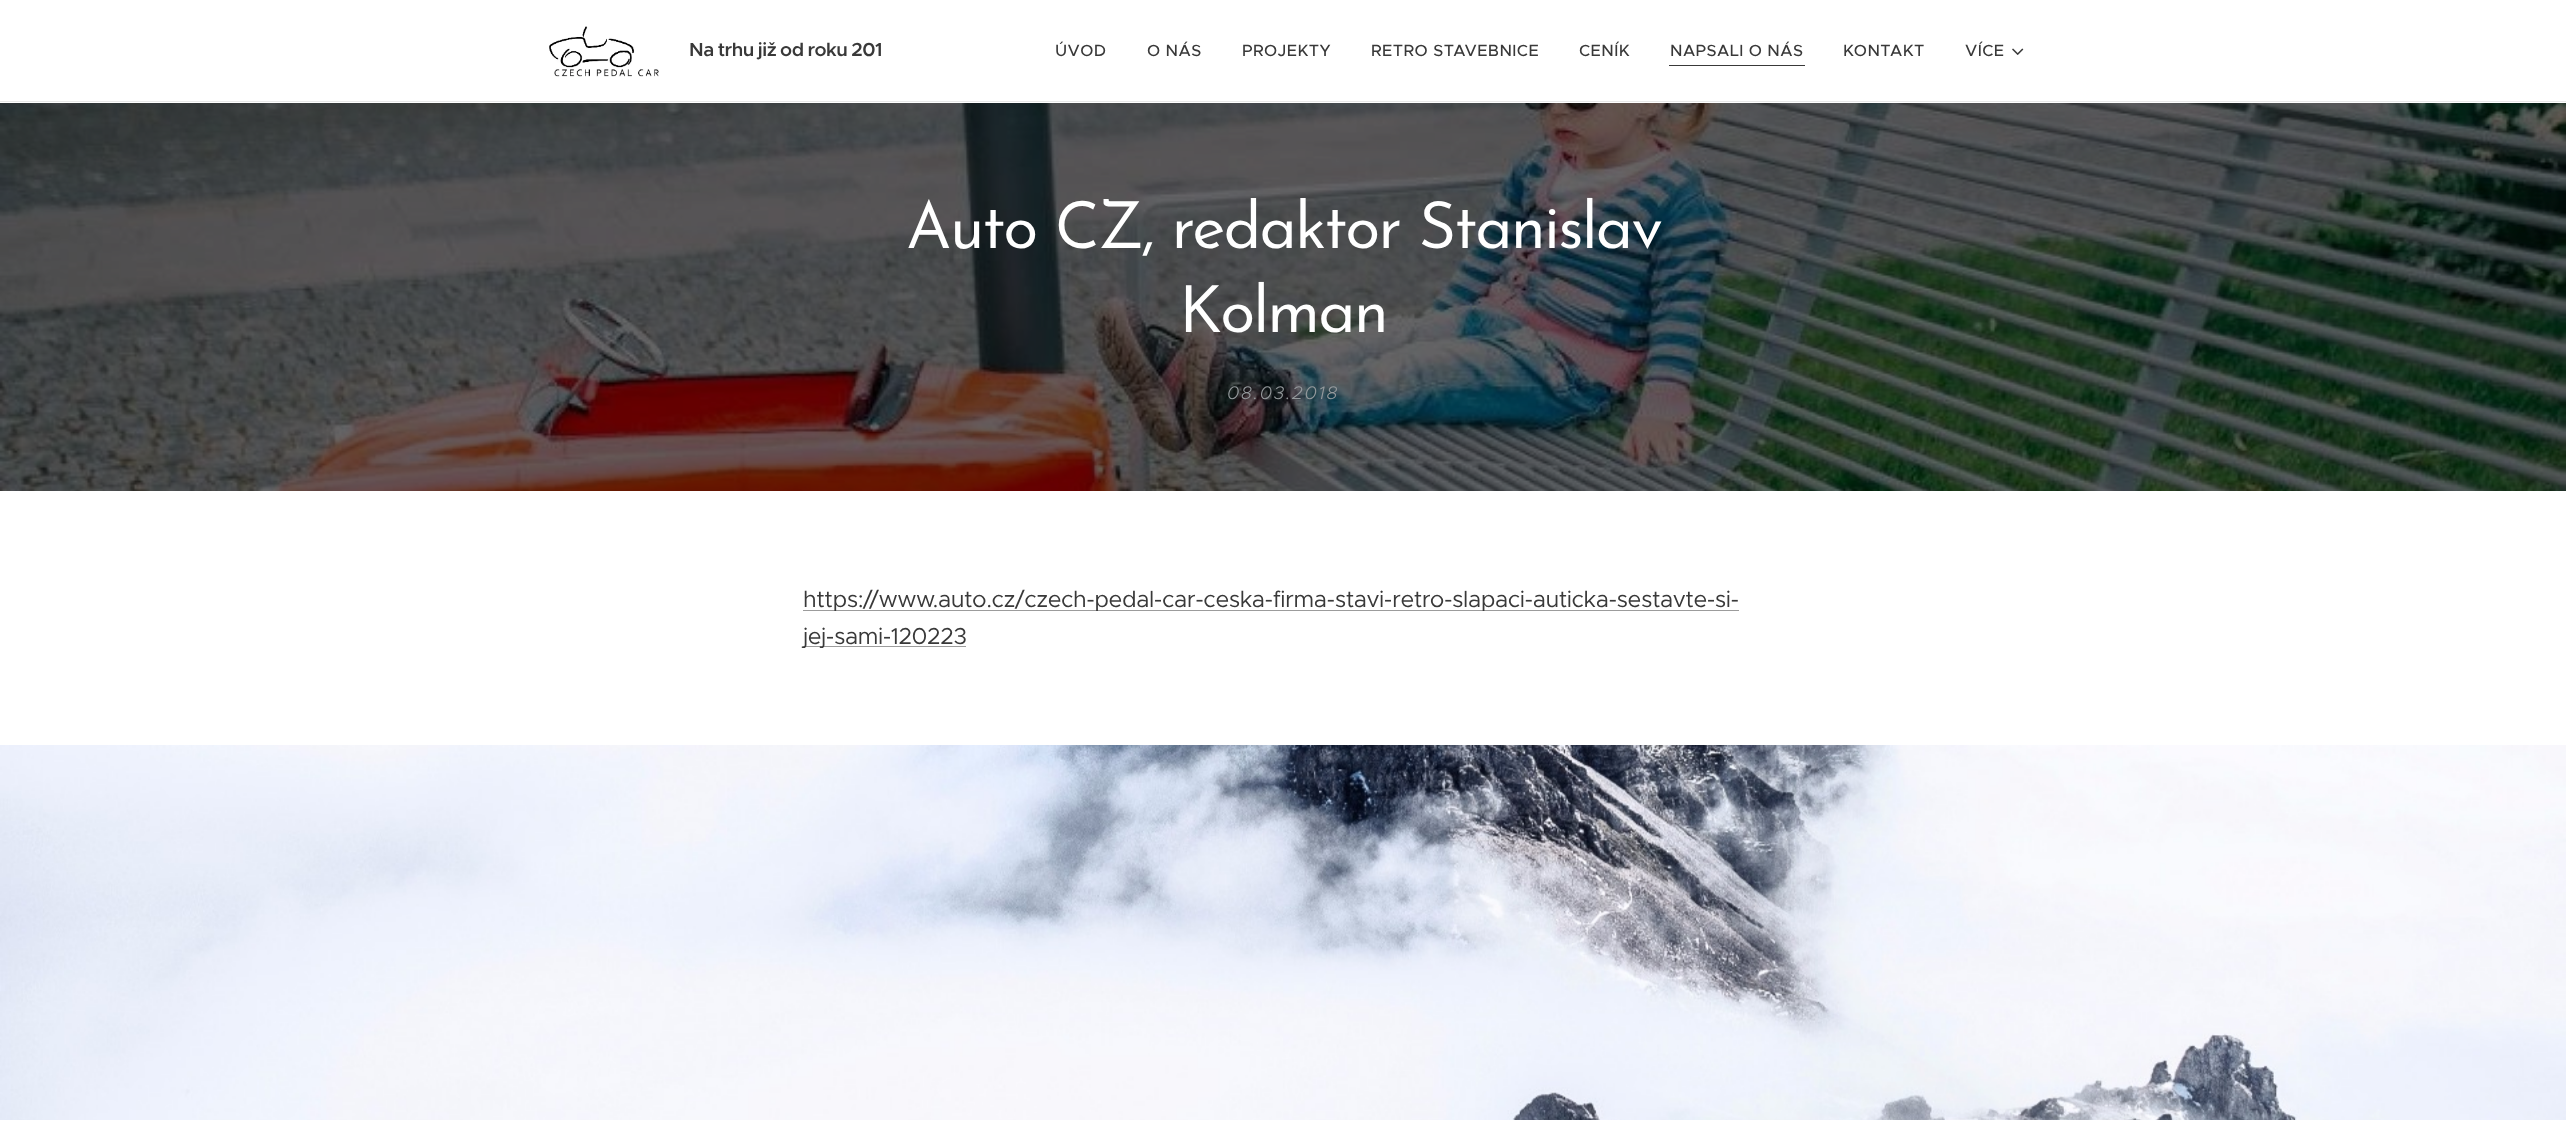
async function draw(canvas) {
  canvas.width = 2566
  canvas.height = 1144
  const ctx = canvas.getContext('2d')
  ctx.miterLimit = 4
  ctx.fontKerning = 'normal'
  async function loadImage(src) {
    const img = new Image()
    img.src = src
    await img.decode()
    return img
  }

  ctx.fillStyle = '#fff'
  ctx.fillRect(0, 0, 2566, 1144)
  ctx.drawImage(await loadImage('image0.png'), 549, 26, 110, 51)
  ctx.letterSpacing = '-0.45px'
  ctx.wordSpacing = '-1px'
  ctx.font = '600 19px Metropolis'
  ctx.fillStyle = '#393939'
  ctx.fillText('Na trhu již od roku 201', 689, 56)
  ctx.letterSpacing = '0.4px'
  ctx.wordSpacing = '0px'
  ctx.font = '500 16.25px Metropolis'
  ctx.fillText('ÚVOD', 1055, 56)
  ctx.fillText('O NÁS', 1147, 56)
  ctx.fillText('PROJEKTY', 1242, 56)
  ctx.fillText('RETRO STAVEBNICE', 1371, 56)
  ctx.fillText('CENÍK', 1579, 56)
  ctx.fillText('NAPSALI O NÁS', 1670, 56)
  ctx.fillRect(1669, 65, 136, 1)
  ctx.fillText('KONTAKT', 1843, 56)
  ctx.fillText('VÍCE', 1965, 56)
  ctx.drawImage(await loadImage('image1.png'), 2012, 48, 12, 7)
  ctx.fillStyle = '#e8e8e8'
  ctx.fillRect(0, 101, 2566, 1)
  ctx.drawImage(await loadImage('image2.png'), 0, 103, 2566, 388)
  ctx.letterSpacing = '-1.95px'
  ctx.font = '65px Josefin Sans'
  ctx.fillStyle = '#fff'
  ctx.fillText('Auto CZ, redaktor Stanislav', 906, 248)
  ctx.fillText('Kolman', 1179, 332)
  ctx.letterSpacing = '1.75px'
  ctx.font = 'italic 300 18.25px Metropolis'
  ctx.fillStyle = '#94999c'
  ctx.fillText('08.03.2018', 1227, 399)
  ctx.fillStyle = '#9c9c9c'
  ctx.fillRect(803, 610, 936, 1)
  ctx.letterSpacing = '-0.45px'
  ctx.font = '23.1px Metropolis'
  ctx.fillStyle = '#393939'
  ctx.fillText('https://www.auto.cz/czech-pedal-car-ceska-firma-stavi-retro-slapaci-auticka-sestavte-si-', 803, 607)
  ctx.fillStyle = '#9c9c9c'
  ctx.fillRect(803, 646, 163, 1)
  ctx.fillStyle = '#393939'
  ctx.fillText('jej-sami-120223', 803, 644)
  ctx.drawImage(await loadImage('image3.png'), 0, 745, 2566, 375)
}

draw(document.querySelector('canvas'))
